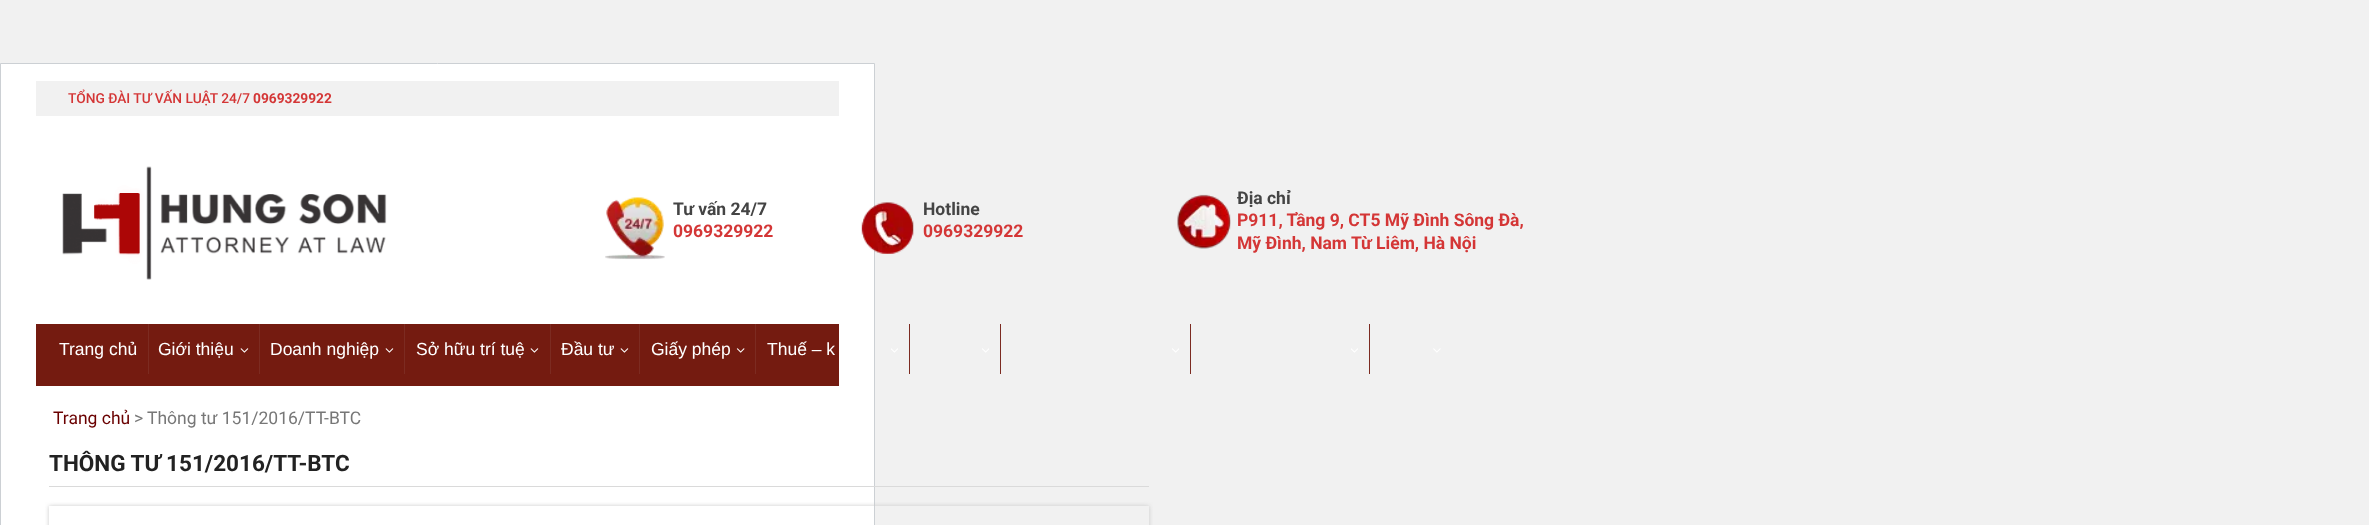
async function draw(canvas) {
  canvas.width = 2369
  canvas.height = 525
  const ctx = canvas.getContext('2d')
  ctx.miterLimit = 4
  ctx.fontKerning = 'normal'
  async function loadImage(src) {
    const img = new Image()
    img.src = src
    await img.decode()
    return img
  }

  ctx.fillStyle = '#f1f1f1'
  ctx.fillRect(0, 0, 2369, 525)
  ctx.fillStyle = '#fff'
  ctx.beginPath()
  ctx.rect(0.5, 63.5, 874, 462)
  ctx.fill()
  ctx.strokeStyle = '#ccd0d4'
  ctx.stroke()
  ctx.fillStyle = '#f1f1f1'
  ctx.fillRect(36, 81, 803, 35)
  ctx.font = '500 13.75px Roboto'
  ctx.fillStyle = '#d43636'
  ctx.fillText('TỔNG ĐÀI TƯ VẤN LUẬT 24/7', 68, 103)
  ctx.font = 'bold 13.75px Roboto'
  ctx.fillText('0969329922', 253, 103)
  ctx.drawImage(await loadImage('image0.png'), 62, 166, 325, 114)
  ctx.drawImage(await loadImage('image1.png'), 605, 197, 60, 63)
  ctx.font = 'bold 17.5px Roboto'
  ctx.fillStyle = '#444'
  ctx.fillText('Tư vấn 24/7', 673, 215)
  ctx.fillStyle = '#d43636'
  ctx.fillText('0969329922', 673, 237)
  ctx.drawImage(await loadImage('image2.png'), 861, 202, 53, 52)
  ctx.fillStyle = '#444'
  ctx.fillText('Hotline', 923, 215)
  ctx.fillStyle = '#d43636'
  ctx.fillText('0969329922', 923, 237)
  ctx.drawImage(await loadImage('image3.png'), 1177, 194, 54, 55)
  ctx.fillStyle = '#444'
  ctx.fillText('Địa chỉ', 1237, 204)
  ctx.fillStyle = '#d43636'
  ctx.fillText('P911, Tầng 9, CT5 Mỹ Đình Sông Đà,', 1237, 226)
  ctx.fillText('Mỹ Đình, Nam Từ Liêm, Hà Nội', 1237, 249)
  ctx.fillStyle = '#741b10'
  ctx.fillRect(36, 324, 803, 62)
  ctx.fillStyle = '#7c2b21'
  ctx.fillRect(148, 324, 1, 50)
  ctx.font = '17.5px Liberation Sans'
  ctx.fillStyle = '#fff'
  ctx.fillText('Trang chủ', 59, 355)
  ctx.fillStyle = '#7c2b21'
  ctx.fillRect(259, 324, 1, 50)
  ctx.fillStyle = '#fff'
  ctx.fillText('Giới thiệu', 158, 355)
  ctx.drawImage(await loadImage('image4.png'), 240, 348, 9, 5)
  ctx.fillStyle = '#7c2b21'
  ctx.fillRect(404, 324, 1, 50)
  ctx.fillStyle = '#fff'
  ctx.fillText('Doanh nghiệp', 270, 355)
  ctx.drawImage(await loadImage('image4.png'), 385, 348, 9, 5)
  ctx.fillStyle = '#7c2b21'
  ctx.fillRect(550, 324, 1, 50)
  ctx.fillStyle = '#fff'
  ctx.fillText('Sở hữu trí tuệ', 416, 355)
  ctx.drawImage(await loadImage('image4.png'), 530, 348, 9, 5)
  ctx.fillStyle = '#7c2b21'
  ctx.fillRect(639, 324, 1, 50)
  ctx.fillStyle = '#fff'
  ctx.fillText('Đầu tư', 561, 355)
  ctx.drawImage(await loadImage('image4.png'), 620, 348, 9, 5)
  ctx.fillStyle = '#7c2b21'
  ctx.fillRect(755, 324, 1, 50)
  ctx.fillStyle = '#fff'
  ctx.fillText('Giấy phép', 651, 355)
  ctx.drawImage(await loadImage('image5.png'), 736, 348, 9, 5)
  ctx.fillStyle = '#7c2b21'
  ctx.fillRect(909, 324, 1, 50)
  ctx.fillStyle = '#fff'
  ctx.fillText('Thuế – k', 767, 355)
  ctx.drawImage(await loadImage('image6.png'), 891, 348, 7, 5)
  ctx.fillStyle = '#7c2b21'
  ctx.fillRect(1000, 324, 1, 50)
  ctx.drawImage(await loadImage('image7.png'), 982, 348, 7, 5)
  ctx.fillRect(1190, 324, 1, 50)
  ctx.drawImage(await loadImage('image7.png'), 1172, 348, 7, 5)
  ctx.fillRect(1369, 324, 1, 50)
  ctx.drawImage(await loadImage('image6.png'), 1351, 348, 7, 5)
  ctx.drawImage(await loadImage('image8.png'), 1433, 348, 8, 5)
  ctx.font = '17.5px Roboto'
  ctx.fillStyle = '#6a0000'
  ctx.fillText('Trang chủ', 53, 424)
  ctx.fillStyle = '#777'
  ctx.fillText('>', 134, 424)
  ctx.fillText('Thông tư 151/2016/TT-BTC', 147, 424)
  ctx.fillStyle = '#dadada'
  ctx.fillRect(49, 486, 1100, 1)
  ctx.font = 'bold 22.5px Roboto'
  ctx.fillStyle = '#222'
  ctx.fillText('THÔNG TƯ 151/2016/TT-BTC', 49, 471)
  ctx.save()
  ctx.beginPath()
  ctx.moveTo(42, 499)
  ctx.lineTo(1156, 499)
  ctx.lineTo(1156, 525)
  ctx.lineTo(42, 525)
  ctx.closePath()
  ctx.moveTo(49, 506)
  ctx.lineTo(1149, 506)
  ctx.lineTo(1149, 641)
  ctx.lineTo(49, 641)
  ctx.closePath()
  ctx.clip('evenodd')
  ctx.fillStyle = '#cacaca'
  ctx.filter = 'blur(2px)'
  ctx.beginPath()
  ctx.rect(49, 506, 1100, 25)
  ctx.fill()
  ctx.filter = 'none'
  ctx.restore()
}

draw(document.querySelector('canvas'))
